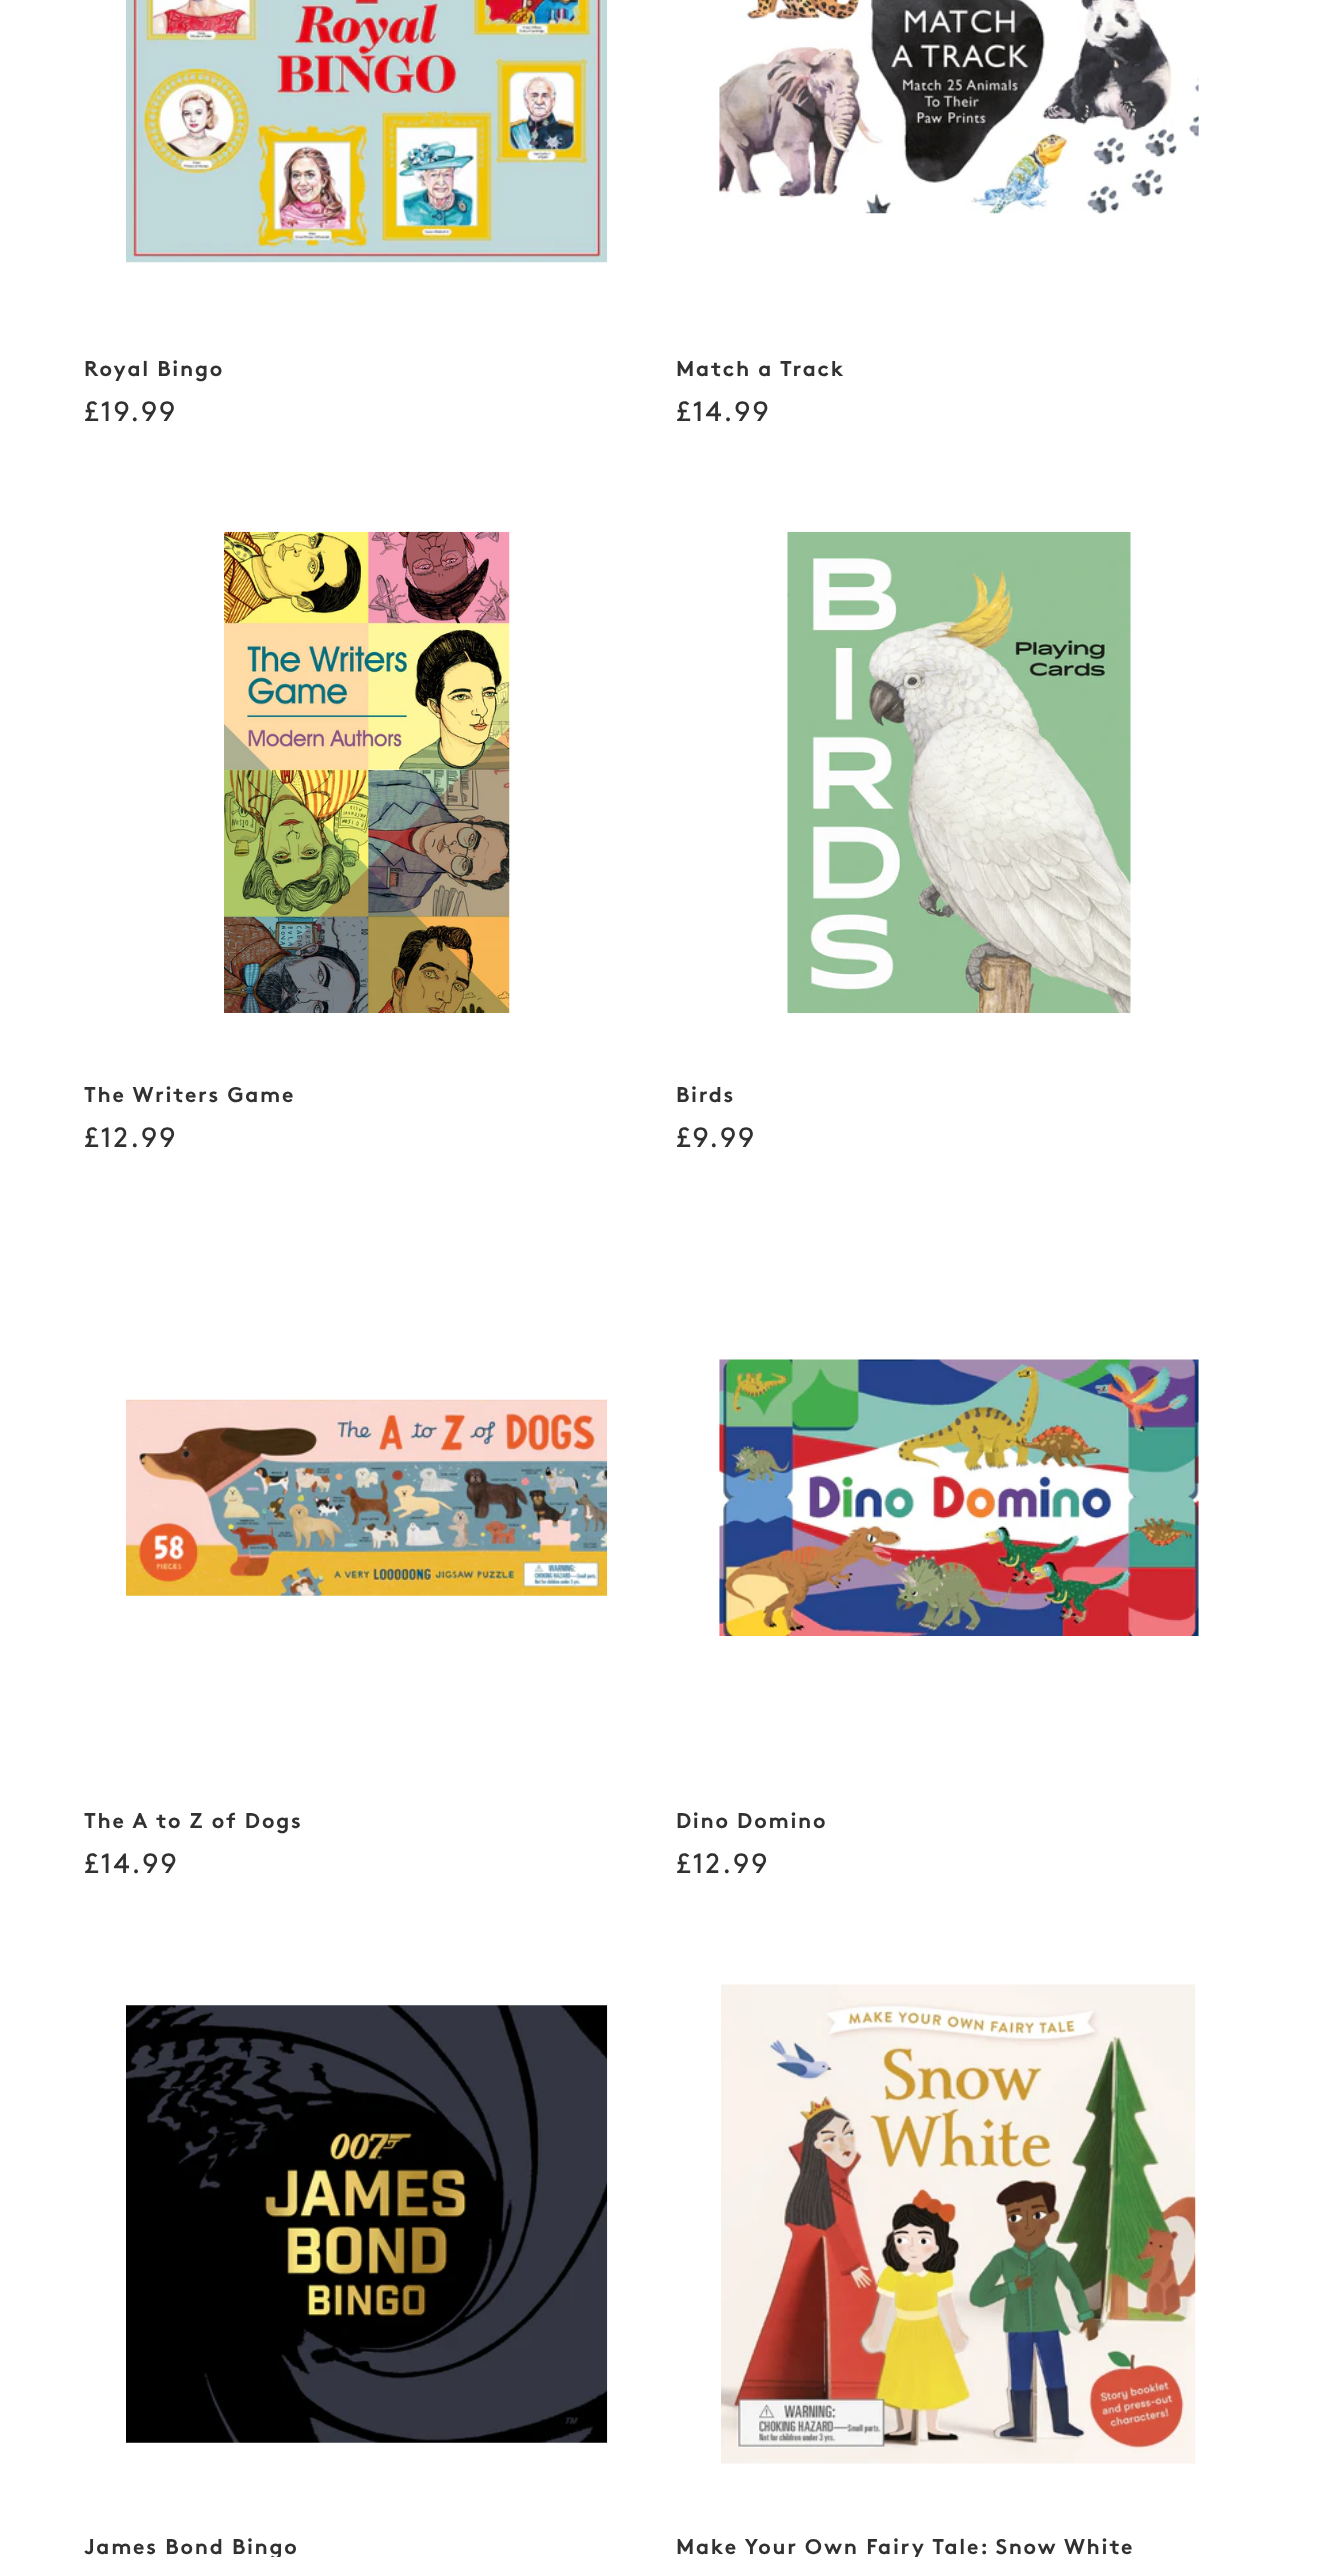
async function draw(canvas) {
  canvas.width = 1324
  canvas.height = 2557
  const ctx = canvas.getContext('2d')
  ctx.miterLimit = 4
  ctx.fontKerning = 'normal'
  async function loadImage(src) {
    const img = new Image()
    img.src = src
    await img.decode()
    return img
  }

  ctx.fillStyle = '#fff'
  ctx.fillRect(0, 0, 1324, 2557)
  ctx.drawImage(await loadImage('image0.png'), 126, 0, 482, 263)
  ctx.letterSpacing = '1.7px'
  ctx.font = 'bold 21.3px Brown'
  ctx.fillStyle = '#313131'
  ctx.fillText('Royal Bingo', 84, 376)
  ctx.font = '28px Brown'
  ctx.fillText('£19.99', 84, 421)
  ctx.drawImage(await loadImage('image1.png'), 719, 0, 480, 214)
  ctx.font = 'bold 21.3px Brown'
  ctx.fillText('Match a Track', 676, 376)
  ctx.font = '28px Brown'
  ctx.fillText('£14.99', 676, 421)
  ctx.drawImage(await loadImage('image2.png'), 224, 531, 286, 482)
  ctx.font = 'bold 21.3px Brown'
  ctx.fillText('The Writers Game', 84, 1102)
  ctx.font = '28px Brown'
  ctx.fillText('£12.99', 84, 1147)
  ctx.drawImage(await loadImage('image3.png'), 787, 531, 344, 482)
  ctx.font = 'bold 21.3px Brown'
  ctx.fillText('Birds', 676, 1102)
  ctx.font = '28px Brown'
  ctx.fillText('£9.99', 676, 1147)
  ctx.drawImage(await loadImage('image4.png'), 126, 1399, 482, 197)
  ctx.font = 'bold 21.3px Brown'
  ctx.fillText('The A to Z of Dogs', 84, 1828)
  ctx.font = '28px Brown'
  ctx.fillText('£14.99', 84, 1873)
  ctx.drawImage(await loadImage('image5.png'), 719, 1359, 480, 277)
  ctx.font = 'bold 21.3px Brown'
  ctx.fillText('Dino Domino', 676, 1828)
  ctx.font = '28px Brown'
  ctx.fillText('£12.99', 676, 1873)
  ctx.drawImage(await loadImage('image6.png'), 126, 2005, 482, 438)
  ctx.font = 'bold 21.3px Brown'
  ctx.fillText('James Bond Bingo', 84, 2554)
  ctx.drawImage(await loadImage('image7.png'), 721, 1984, 475, 480)
  ctx.fillText('Make Your Own Fairy Tale: Snow White', 676, 2554)
}

draw(document.querySelector('canvas'))
